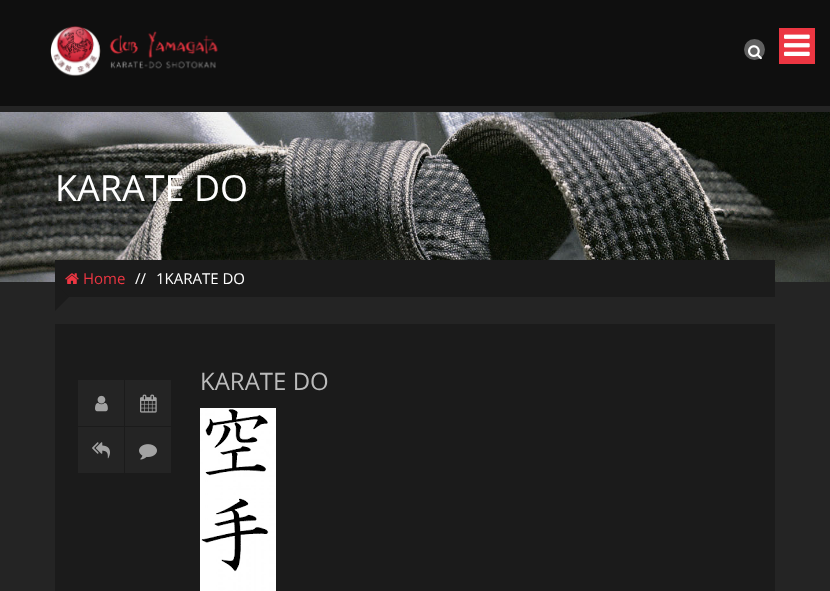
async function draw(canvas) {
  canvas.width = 830
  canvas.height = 591
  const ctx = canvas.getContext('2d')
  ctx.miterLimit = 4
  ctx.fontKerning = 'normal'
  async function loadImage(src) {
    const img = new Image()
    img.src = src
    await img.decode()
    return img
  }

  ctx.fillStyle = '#242424'
  ctx.fillRect(0, 0, 830, 591)
  ctx.fillStyle = '#0f0f0f'
  ctx.fillRect(0, 0, 830, 106)
  ctx.drawImage(await loadImage('image0.png'), 50, 26, 168, 50)
  ctx.fillStyle = '#606060'
  ctx.beginPath()
  ctx.arc(754.5, 49.5, 10.5, 0, 2 * Math.PI)
  ctx.fill()
  ctx.drawImage(await loadImage('image1.png'), 748, 45, 14, 15)
  ctx.fillStyle = '#ec3642'
  ctx.fillRect(779, 28, 36, 36)
  ctx.drawImage(await loadImage('image2.png'), 784, 34, 26, 22)
  ctx.drawImage(await loadImage('image3.png'), 0, 112, 830, 170)
  ctx.font = '36px Open Sans'
  ctx.fillStyle = '#fff'
  ctx.fillText('KARATE DO', 55, 201)
  ctx.fillStyle = '#1b1b1b'
  ctx.fillRect(55, 260, 720, 37)
  ctx.drawImage(await loadImage('image4.png'), 65, 273, 14, 11)
  ctx.font = '15px Open Sans'
  ctx.fillStyle = '#ec3642'
  ctx.fillText('Home', 83, 284)
  ctx.fillStyle = '#fff'
  ctx.fillText('//', 135, 284)
  ctx.fillText('1KARATE DO', 156, 284)
  ctx.fillStyle = '#1b1b1b'
  ctx.beginPath()
  ctx.moveTo(55, 311)
  ctx.lineTo(55, 283)
  ctx.lineTo(69, 297)
  ctx.closePath()
  ctx.fill()
  ctx.fillRect(55, 324, 720, 267)
  ctx.fillStyle = '#242424'
  ctx.fillRect(78, 380, 46, 46)
  ctx.drawImage(await loadImage('image5.png'), 95, 395, 13, 17)
  ctx.fillRect(125, 380, 46, 46)
  ctx.drawImage(await loadImage('image6.png'), 140, 394, 17, 19)
  ctx.fillRect(78, 427, 46, 46)
  ctx.drawImage(await loadImage('image7.png'), 92, 442, 18, 17)
  ctx.fillRect(125, 427, 46, 46)
  ctx.drawImage(await loadImage('image8.png'), 139, 444, 18, 16)
  ctx.font = '24px Open Sans'
  ctx.fillStyle = '#bbb'
  ctx.fillText('KARATE DO', 200, 390)
  ctx.drawImage(await loadImage('image9.png'), 200, 408, 76, 183)
}

draw(document.querySelector('canvas'))
